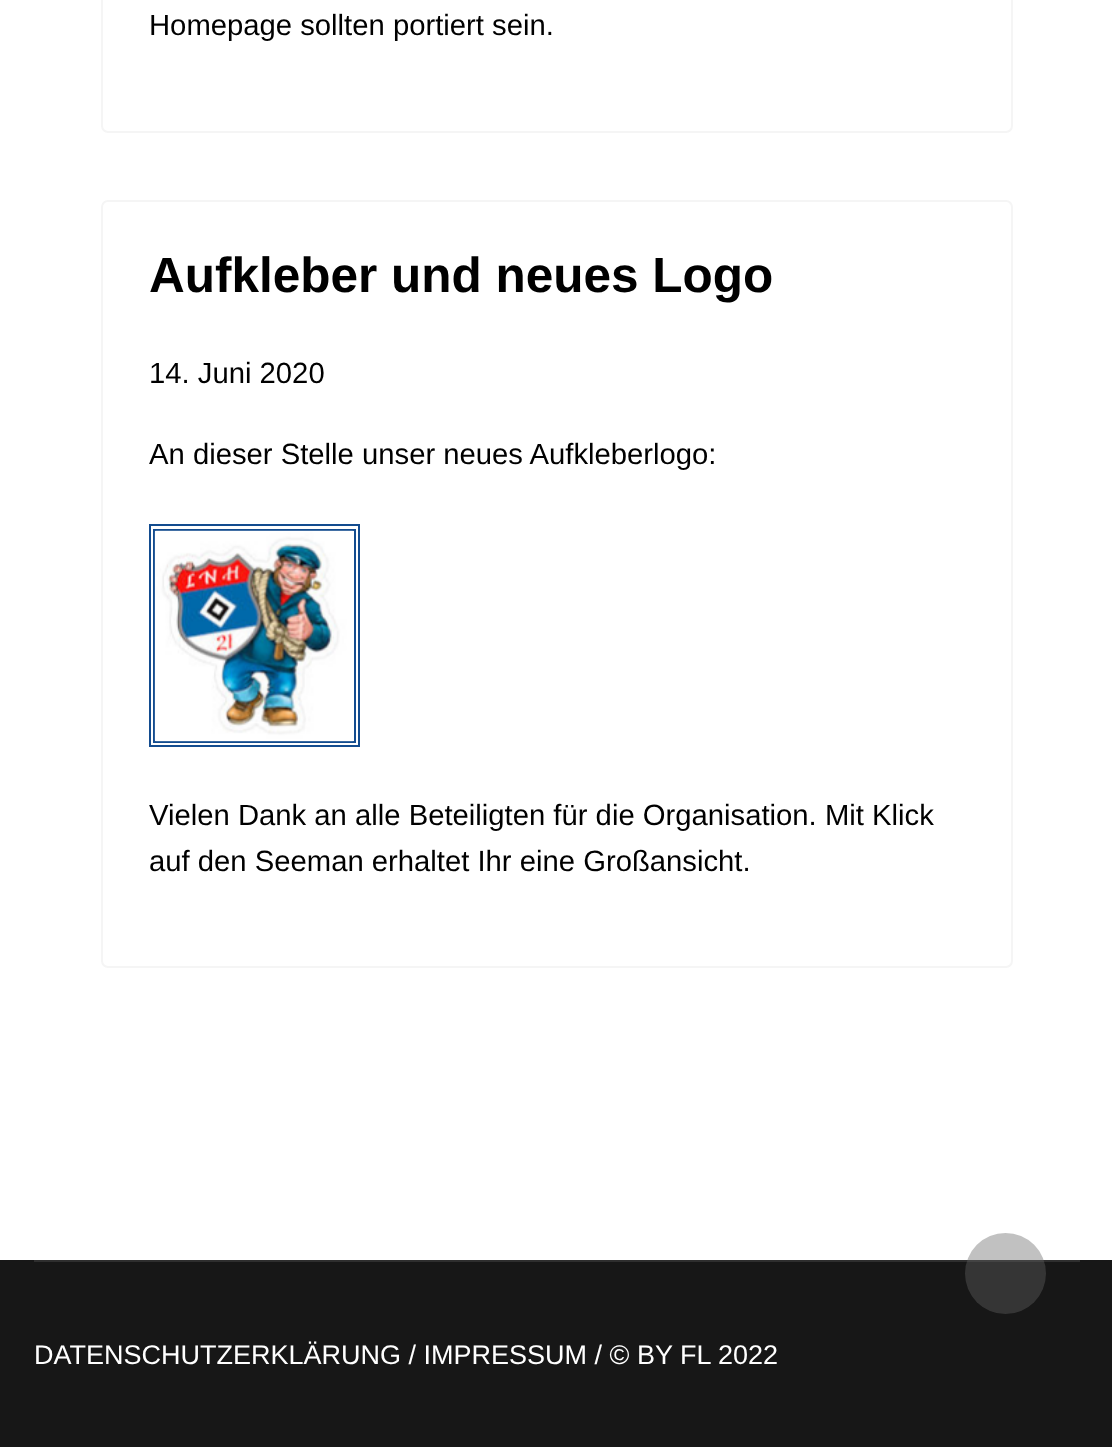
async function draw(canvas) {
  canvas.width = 1112
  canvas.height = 1447
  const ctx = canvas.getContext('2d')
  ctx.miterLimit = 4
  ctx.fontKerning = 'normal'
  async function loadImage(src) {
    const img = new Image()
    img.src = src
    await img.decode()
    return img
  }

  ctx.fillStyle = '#fff'
  ctx.fillRect(0, 0, 1112, 1447)
  ctx.beginPath()
  ctx.roundRect(102, -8, 910, 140, 6)
  ctx.strokeStyle = '#f5f5f5'
  ctx.lineWidth = 2
  ctx.stroke()
  ctx.font = '29.25px Liberation Sans'
  ctx.fillStyle = '#000'
  ctx.fillText('Homepage sollten portiert sein.', 149, 35)
  ctx.beginPath()
  ctx.roundRect(102, 201, 910, 766, 6)
  ctx.stroke()
  ctx.font = 'bold 49.5px Liberation Sans'
  ctx.fillText('Aufkleber und neues Logo', 149, 292)
  ctx.font = '29.25px Liberation Sans'
  ctx.fillText('14. Juni 2020', 149, 383)
  ctx.fillText('An dieser Stelle unser neues Aufkleberlogo:', 149, 464)
  ctx.strokeStyle = '#134c8f'
  ctx.strokeRect(150, 525, 209, 221)
  ctx.strokeRect(154, 530, 201, 212)
  ctx.drawImage(await loadImage('image0.png'), 154, 530, 200, 212)
  ctx.fillText('Vielen Dank an alle Beteiligten für die Organisation. Mit Klick', 149, 825)
  ctx.fillText('auf den Seeman erhaltet Ihr eine Großansicht.', 149, 871)
  ctx.fillStyle = '#171717'
  ctx.fillRect(0, 1260, 1112, 187)
  ctx.fillStyle = '#2e2e2e'
  ctx.fillRect(34, 1260, 1046, 2)
  ctx.font = '27px Liberation Sans'
  ctx.fillStyle = '#fff'
  ctx.fillText('DATENSCHUTZERKLÄRUNG / IMPRESSUM / © BY FL 2022', 34, 1364)
  ctx.fillStyle = '#64646466'
  ctx.beginPath()
  ctx.arc(1005.5, 1273.5, 40.5, 0, 2 * Math.PI)
  ctx.fill()
}

draw(document.querySelector('canvas'))
